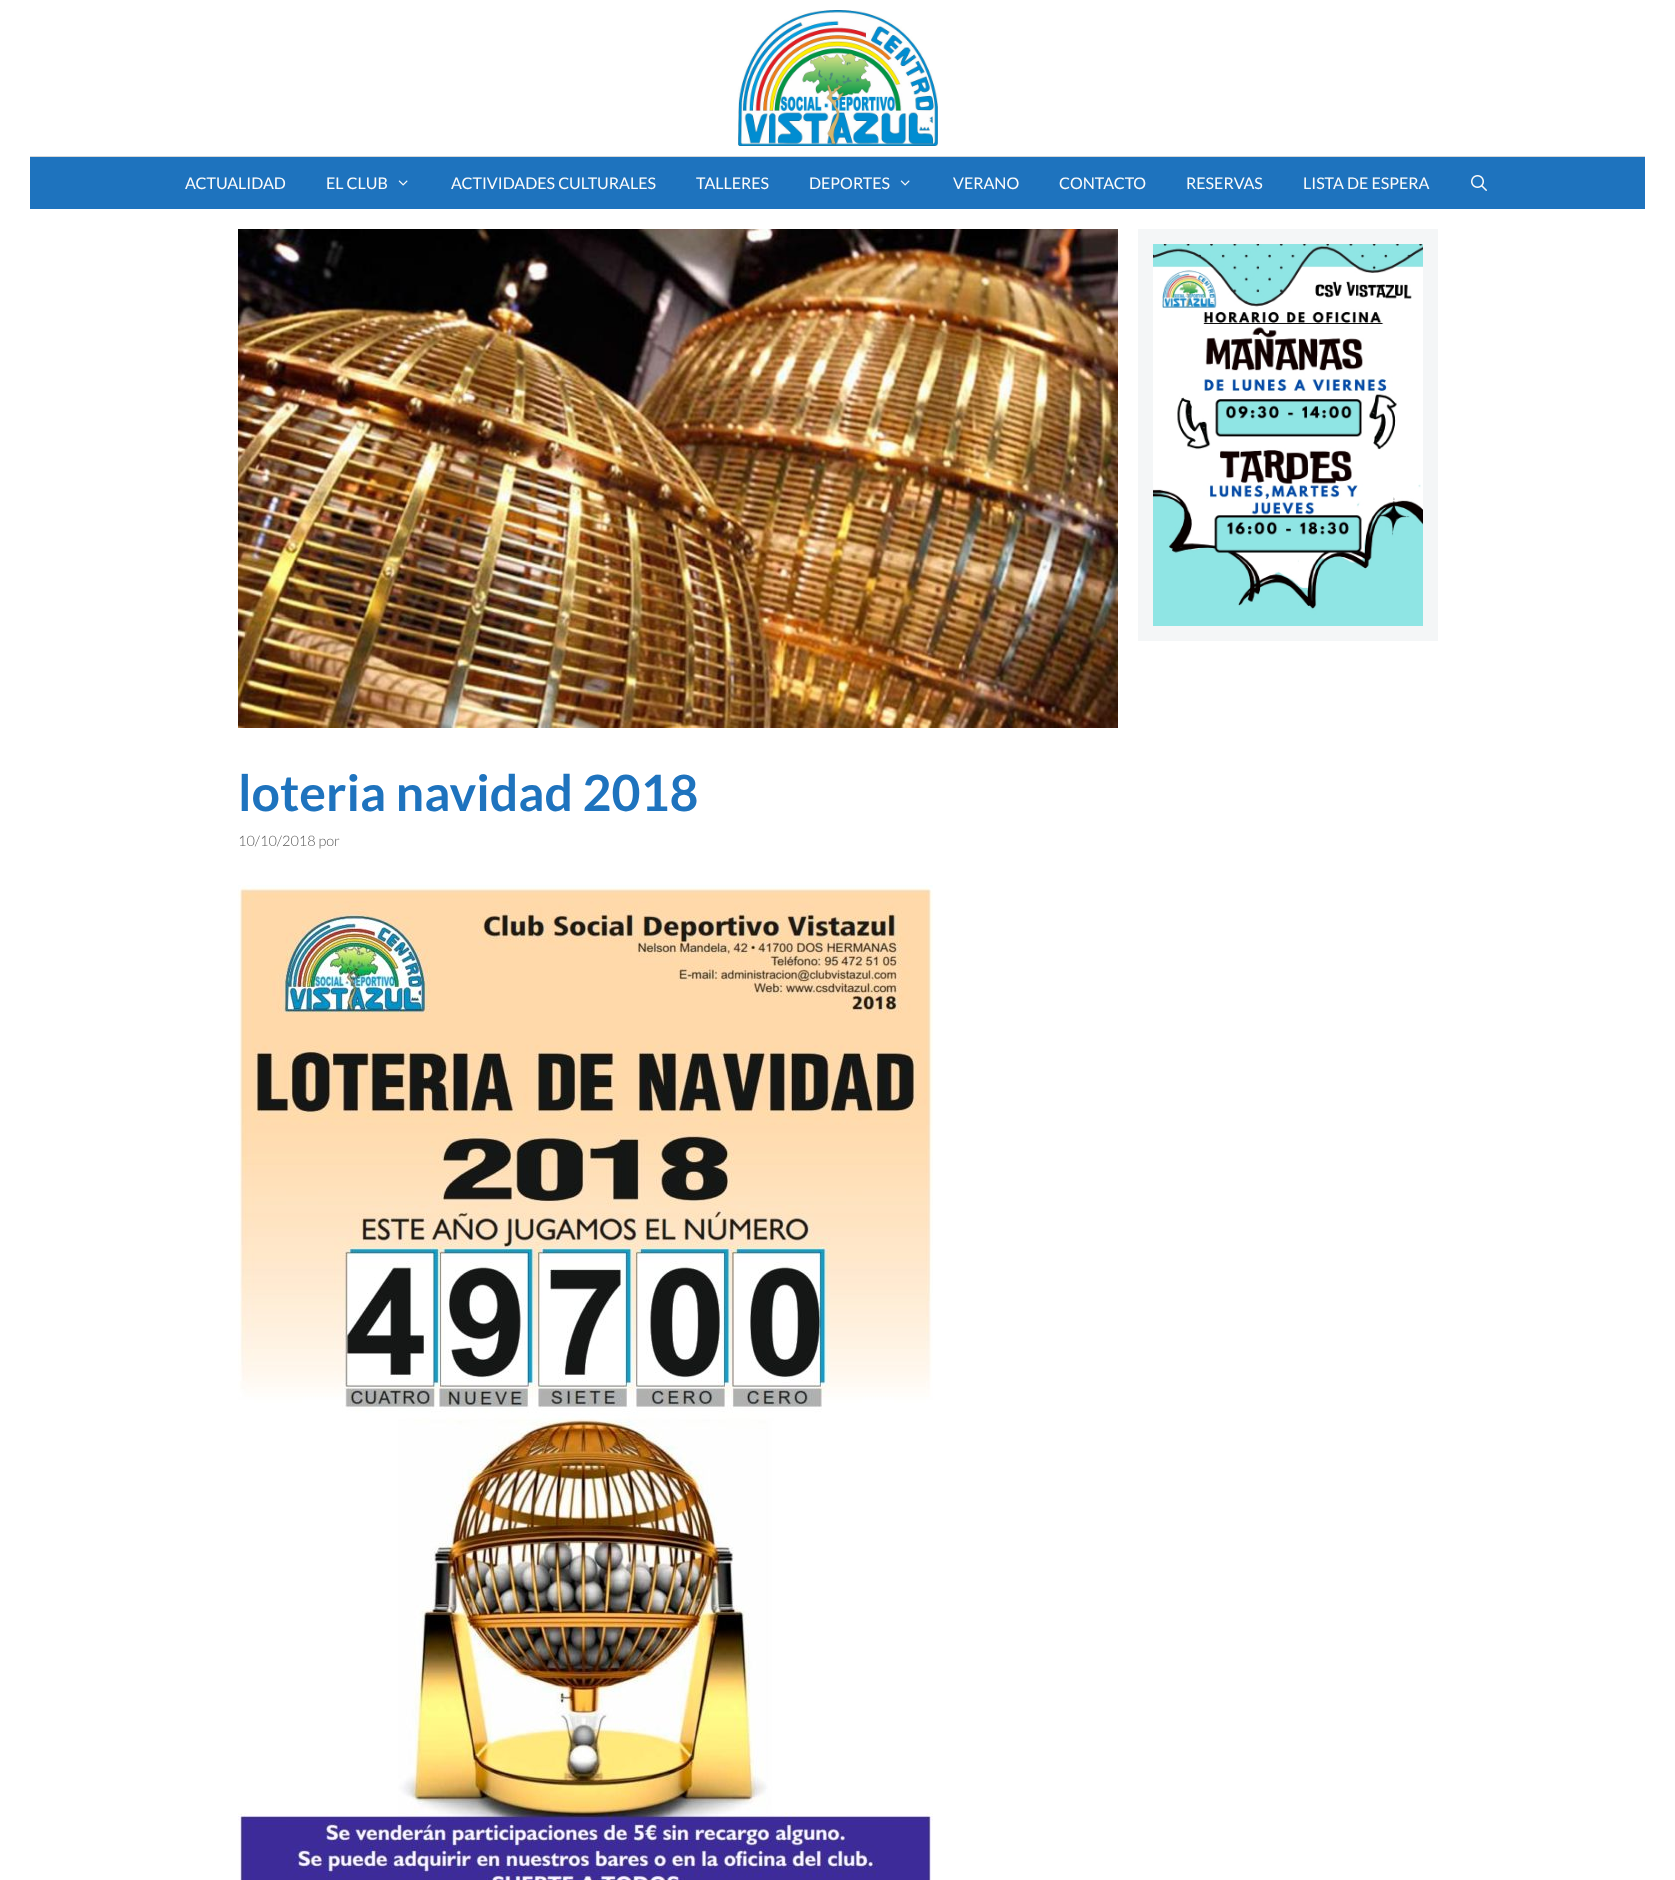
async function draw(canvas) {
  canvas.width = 1675
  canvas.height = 1880
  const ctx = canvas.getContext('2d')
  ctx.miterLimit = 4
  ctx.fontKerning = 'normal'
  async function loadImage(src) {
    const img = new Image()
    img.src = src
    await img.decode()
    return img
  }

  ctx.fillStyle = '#fff'
  ctx.fillRect(0, 0, 1675, 1880)
  ctx.drawImage(await loadImage('image0.png'), 738, 10, 200, 136)
  ctx.fillStyle = '#1e73be'
  ctx.fillRect(30, 157, 1615, 52)
  ctx.fillStyle = '#d4d7d8'
  ctx.fillRect(30, 156, 1615, 1)
  ctx.font = '16px Lato'
  ctx.fillStyle = '#fbfbfb'
  ctx.fillText('ACTUALIDAD', 185, 189)
  ctx.fillText('EL CLUB', 326, 189)
  ctx.drawImage(await loadImage('image1.png'), 398, 180, 10, 6)
  ctx.fillText('ACTIVIDADES CULTURALES', 451, 189)
  ctx.fillText('TALLERES', 696, 189)
  ctx.fillText('DEPORTES', 809, 189)
  ctx.drawImage(await loadImage('image1.png'), 900, 180, 10, 6)
  ctx.fillText('VERANO', 953, 189)
  ctx.fillText('CONTACTO', 1059, 189)
  ctx.fillText('RESERVAS', 1186, 189)
  ctx.fillText('LISTA DE ESPERA', 1303, 189)
  ctx.drawImage(await loadImage('image2.png'), 1471, 175, 16, 16)
  ctx.fillStyle = '#f4f6f7'
  ctx.fillRect(1138, 229, 300, 412)
  ctx.drawImage(await loadImage('image3.png'), 1153, 244, 270, 382)
  ctx.drawImage(await loadImage('image4.png'), 238, 229, 880, 499)
  ctx.font = 'bold 50px Lato'
  ctx.fillStyle = '#1e73be'
  ctx.fillText('loteria navidad 2018', 238, 811)
  ctx.font = '300 14.5px Lato'
  ctx.fillStyle = '#595959'
  ctx.fillText('10/10/2018 por', 238, 846)
  ctx.drawImage(await loadImage('image5.png'), 238, 885, 695, 995)
}

draw(document.querySelector('canvas'))
